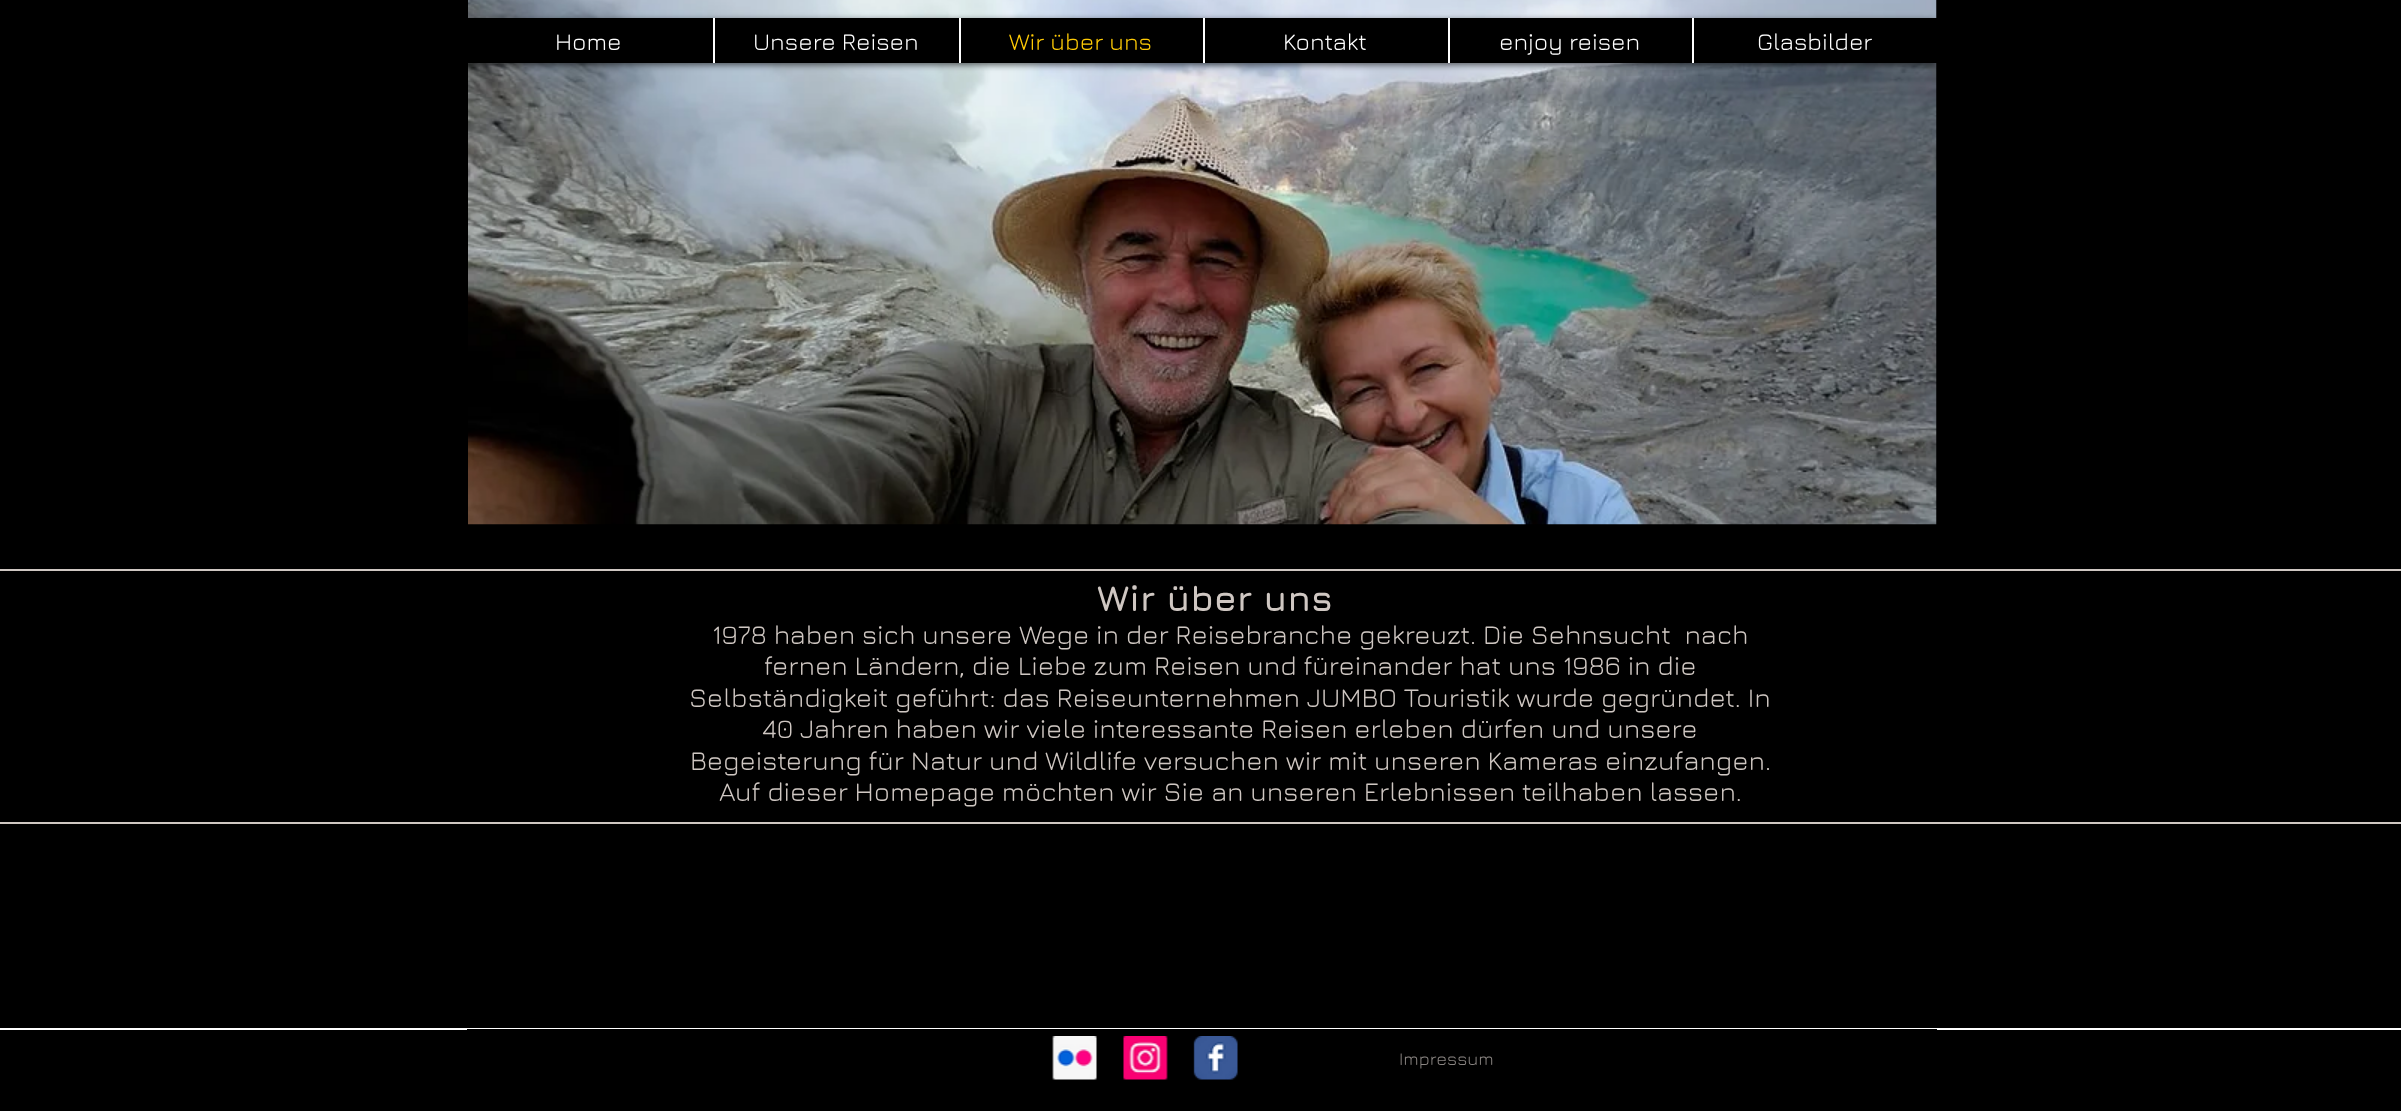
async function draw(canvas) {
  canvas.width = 2401
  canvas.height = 1111
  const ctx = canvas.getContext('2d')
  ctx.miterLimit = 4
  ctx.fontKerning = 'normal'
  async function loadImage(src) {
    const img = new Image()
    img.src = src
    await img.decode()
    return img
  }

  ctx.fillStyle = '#000'
  ctx.fillRect(0, 0, 2401, 1111)
  ctx.drawImage(await loadImage('image0.png'), 468, 0, 1469, 525)
  ctx.fillStyle = '#00000099'
  ctx.filter = 'blur(3px)'
  ctx.beginPath()
  ctx.rect(467, 20, 1470, 45)
  ctx.fill()
  ctx.filter = 'none'
  ctx.fillStyle = '#000'
  ctx.fillRect(468, 18, 1469, 45)
  ctx.font = '24px Jura'
  ctx.fillStyle = '#fff'
  ctx.fillText('Home', 555, 50)
  ctx.fillRect(713, 18, 2, 45)
  ctx.fillText('Unsere Reisen', 753, 50)
  ctx.fillRect(959, 18, 2, 45)
  ctx.fillStyle = '#ffcb05'
  ctx.fillText('Wir über uns', 1009, 50)
  ctx.fillStyle = '#fff'
  ctx.fillRect(1203, 18, 2, 45)
  ctx.fillText('Kontakt', 1283, 50)
  ctx.fillRect(1448, 18, 2, 45)
  ctx.fillText('enjoy reisen', 1499, 50)
  ctx.fillRect(1692, 18, 2, 45)
  ctx.fillText('Glasbilder', 1757, 50)
  ctx.fillStyle = '#cfc7c2'
  ctx.fillRect(0, 569, 2401, 2)
  ctx.fillRect(0, 822, 2401, 2)
  ctx.font = 'bold 36px Jura'
  ctx.fillText('Wir über uns', 1097, 611)
  ctx.font = '27px Jura'
  ctx.fillText('1978 haben sich unsere Wege in der Reisebranche gekreuzt. Die Sehnsucht  nach', 712, 644)
  ctx.fillText('fernen Ländern, die Liebe zum Reisen und füreinander hat uns 1986 in die', 764, 675)
  ctx.fillText('Selbständigkeit geführt: das Reiseunternehmen JUMBO Touristik wurde gegründet. In', 689, 707)
  ctx.fillText('40 Jahren haben wir viele interessante Reisen erleben dürfen und unsere', 762, 738)
  ctx.fillText('Begeisterung für Natur und Wildlife versuchen wir mit unseren Kameras einzufangen.', 690, 770)
  ctx.fillText('Auf dieser Homepage möchten wir Sie an unseren Erlebnissen teilhaben lassen.', 719, 801)
  ctx.fillStyle = '#fff'
  ctx.fillRect(0, 1028, 2401, 2)
  ctx.fillStyle = '#000'
  ctx.fillRect(467, 1029, 1470, 1)
  ctx.drawImage(await loadImage('image1.png'), 1052, 1036, 45, 44)
  ctx.drawImage(await loadImage('image2.png'), 1123, 1036, 45, 44)
  ctx.drawImage(await loadImage('image3.png'), 1193, 1036, 45, 44)
  ctx.font = '18px Jura'
  ctx.fillStyle = '#8b8683'
  ctx.fillText('Impressum', 1399, 1065)
}

draw(document.querySelector('canvas'))
